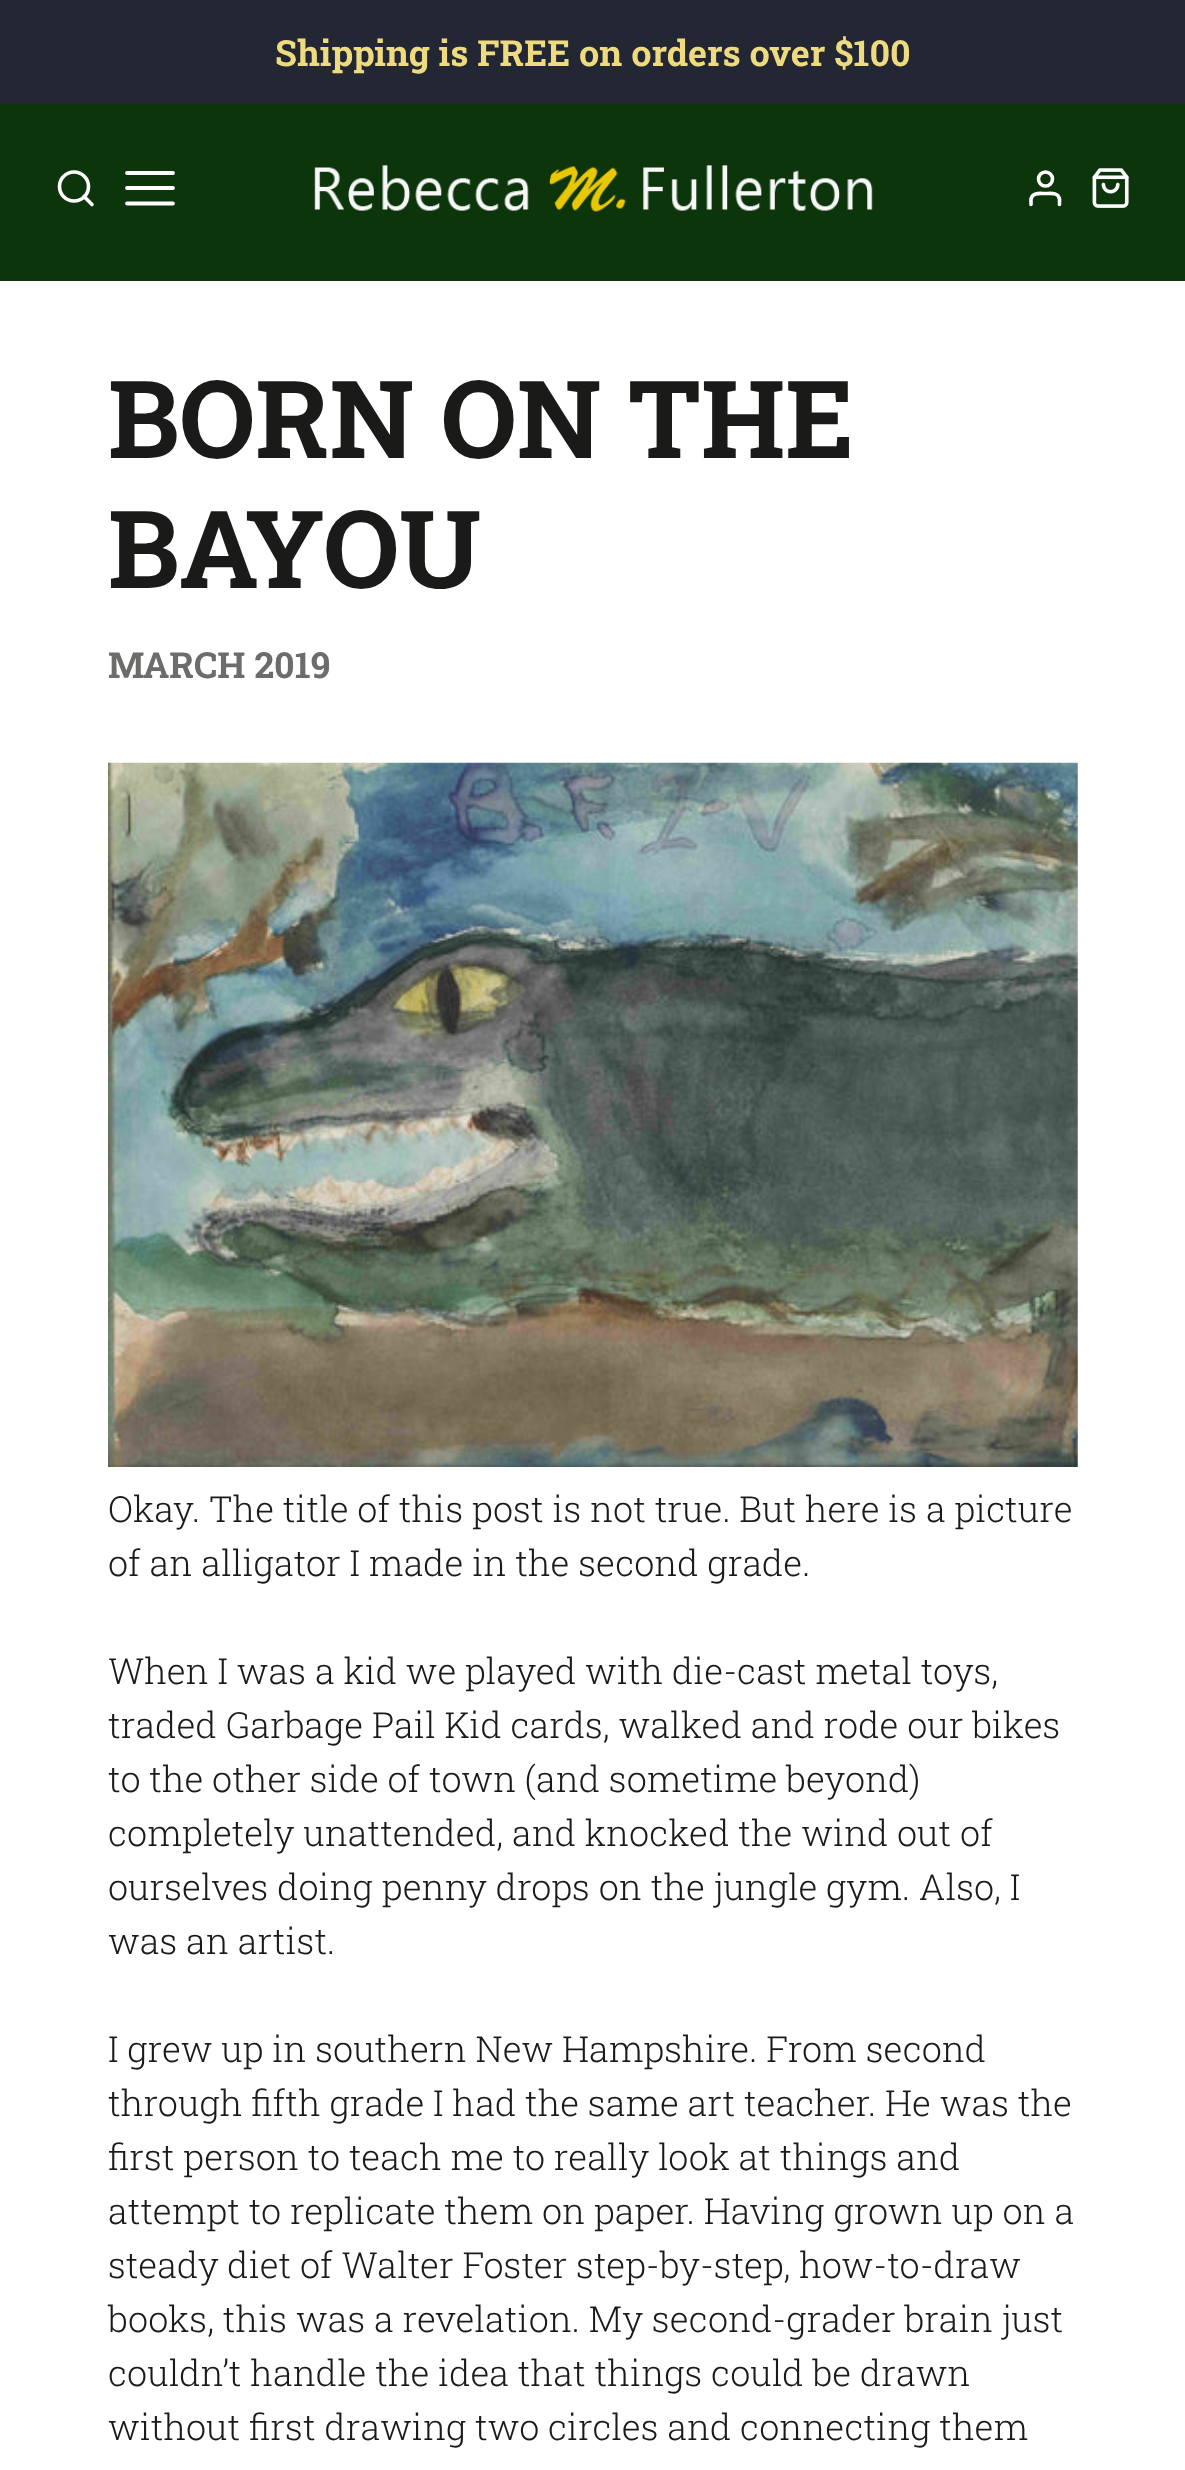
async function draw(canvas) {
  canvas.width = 1185
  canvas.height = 2470
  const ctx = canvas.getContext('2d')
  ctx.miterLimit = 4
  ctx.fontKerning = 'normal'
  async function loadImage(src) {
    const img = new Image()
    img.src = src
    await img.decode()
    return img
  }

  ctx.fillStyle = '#fff'
  ctx.fillRect(0, 0, 1185, 2470)
  ctx.fillStyle = '#232734'
  ctx.fillRect(0, 0, 1185, 104)
  ctx.font = 'bold 36px Roboto Slab'
  ctx.fillStyle = '#efdb7f'
  ctx.fillText('Shipping is FREE on orders over $100', 275, 66)
  ctx.fillStyle = '#0c350b'
  ctx.fillRect(0, 104, 1185, 177)
  ctx.beginPath()
  ctx.arc(74, 186.5, 14.5, 0, 2 * Math.PI)
  ctx.strokeStyle = '#fff'
  ctx.lineWidth = 3.6
  ctx.stroke()
  ctx.beginPath()
  ctx.moveTo(92, 204.5)
  ctx.lineTo(84, 196.5)
  ctx.lineCap = 'round'
  ctx.lineJoin = 'round'
  ctx.stroke()
  ctx.beginPath()
  ctx.moveTo(127, 188)
  ctx.lineTo(173, 188)
  ctx.moveTo(127, 173)
  ctx.lineTo(173, 173)
  ctx.moveTo(127, 203.5)
  ctx.lineTo(173, 203.5)
  ctx.lineWidth = 3.8
  ctx.stroke()
  ctx.drawImage(await loadImage('image0.png'), 314, 165, 559, 47)
  ctx.beginPath()
  ctx.arc(1045.5, 179, 7, 0, 2 * Math.PI)
  ctx.lineWidth = 3.6
  ctx.stroke()
  ctx.beginPath()
  ctx.moveTo(1059.5, 204.5)
  ctx.lineTo(1059.5, 199)
  ctx.bezierCurveTo(1058, 192, 1050.5, 193.5, 1045.5, 193.5)
  ctx.bezierCurveTo(1040, 193.5, 1032.5, 192, 1031, 199)
  ctx.lineTo(1031, 204.5)
  ctx.stroke()
  ctx.drawImage(await loadImage('image1.png'), 1092, 168, 37, 40)
  ctx.font = 'bold 108px Roboto Slab'
  ctx.fillStyle = '#1a1b18'
  ctx.fillText('BORN ON THE', 108, 458)
  ctx.fillText('BAYOU', 108, 588)
  ctx.font = 'bold 36px Roboto Slab'
  ctx.fillStyle = '#6c6d6b'
  ctx.fillText('MARCH 2019', 108, 678)
  ctx.drawImage(await loadImage('image2.png'), 108, 762, 970, 705)
  ctx.font = '300 36px Roboto Slab'
  ctx.fillStyle = '#1a1b18'
  ctx.fillText('Okay. The title of this post is not true. But here is a picture', 108, 1522)
  ctx.fillText('of an alligator I made in the second grade.', 108, 1576)
  ctx.fillText('When I was a kid we played with die-cast metal toys,', 108, 1684)
  ctx.fillText('traded Garbage Pail Kid cards, walked and rode our bikes', 108, 1738)
  ctx.fillText('to the other side of town (and sometime beyond)', 108, 1792)
  ctx.fillText('completely unattended, and knocked the wind out of', 108, 1846)
  ctx.fillText('ourselves doing penny drops on the jungle gym. Also, I', 108, 1900)
  ctx.fillText('was an artist.', 108, 1954)
  ctx.fillText('I grew up in southern New Hampshire. From second', 108, 2062)
  ctx.fillText('through fifth grade I had the same art teacher. He was the', 108, 2116)
  ctx.fillText('first person to teach me to really look at things and', 108, 2170)
  ctx.fillText('attempt to replicate them on paper. Having grown up on a', 108, 2224)
  ctx.fillText('steady diet of Walter Foster step-by-step, how-to-draw', 108, 2278)
  ctx.fillText('books, this was a revelation. My second-grader brain just', 108, 2332)
  ctx.fillText('couldn’t handle the idea that things could be drawn', 108, 2386)
  ctx.fillText('without first drawing two circles and connecting them', 108, 2440)
}

draw(document.querySelector('canvas'))
